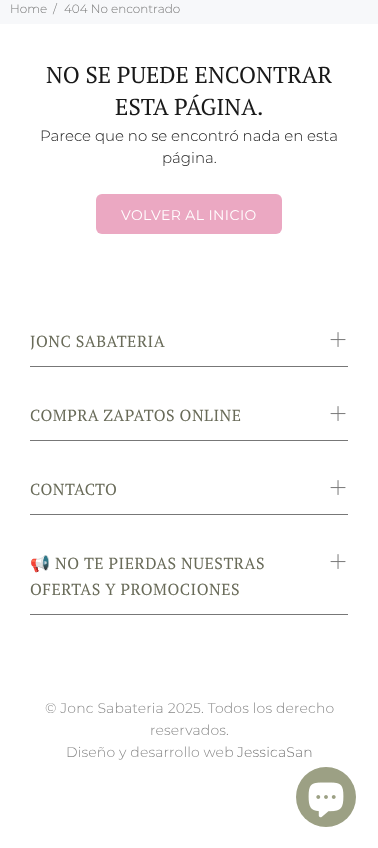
async function draw(canvas) {
  canvas.width = 378
  canvas.height = 848
  const ctx = canvas.getContext('2d')
  ctx.miterLimit = 4
  ctx.fontKerning = 'normal'
  async function loadImage(src) {
    const img = new Image()
    img.src = src
    await img.decode()
    return img
  }

  ctx.fillStyle = '#fff'
  ctx.fillRect(0, 0, 378, 848)
  ctx.fillStyle = '#f7f8fa'
  ctx.fillRect(0, 0, 378, 24)
  ctx.font = '300 12px Montserrat'
  ctx.fillStyle = '#777'
  ctx.fillText('Home', 10, 13)
  ctx.fillText('/', 53, 13)
  ctx.fillText('404 No encontrado', 64, 13)
  ctx.font = '23px PT Serif'
  ctx.fillStyle = '#191919'
  ctx.fillText('NO SE PUEDE ENCONTRAR', 46, 83)
  ctx.fillText('ESTA PÁGINA.', 115, 115)
  ctx.font = '300 15px Montserrat'
  ctx.fillText('Parece que no se encontró nada en esta', 40, 141)
  ctx.fillText('página.', 162, 163)
  ctx.fillStyle = '#eba8c2'
  ctx.beginPath()
  ctx.roundRect(96, 194, 186, 40, 6)
  ctx.fill()
  ctx.letterSpacing = '0.4px'
  ctx.font = '14px Montserrat'
  ctx.fillStyle = '#fff'
  ctx.fillText('VOLVER AL INICIO', 121, 220)
  ctx.fillStyle = '#777'
  ctx.fillRect(30, 366, 318, 1)
  ctx.letterSpacing = '0.5px'
  ctx.font = '16px PT Serif'
  ctx.fillStyle = '#696b59'
  ctx.fillText('JONC SABATERIA', 30, 347)
  ctx.drawImage(await loadImage('image0.png'), 330, 332, 16, 15)
  ctx.fillStyle = '#777'
  ctx.fillRect(30, 440, 318, 1)
  ctx.fillStyle = '#696b59'
  ctx.fillText('COMPRA ZAPATOS ONLINE', 30, 421)
  ctx.drawImage(await loadImage('image0.png'), 330, 406, 16, 15)
  ctx.fillStyle = '#777'
  ctx.fillRect(30, 514, 318, 1)
  ctx.fillStyle = '#696b59'
  ctx.fillText('CONTACTO', 30, 495)
  ctx.drawImage(await loadImage('image0.png'), 330, 480, 16, 15)
  ctx.fillStyle = '#777'
  ctx.fillRect(30, 614, 318, 1)
  ctx.font = '16px Noto Color Emoji'
  ctx.fillStyle = '#696b59'
  ctx.fillText('📢', 30, 569)
  ctx.font = '16px PT Serif'
  ctx.fillText('NO TE PIERDAS NUESTRAS', 55, 569)
  ctx.drawImage(await loadImage('image0.png'), 330, 554, 16, 15)
  ctx.fillText('OFERTAS Y PROMOCIONES', 30, 595)
  ctx.letterSpacing = '0.15px'
  ctx.font = '300 14px Montserrat'
  ctx.fillStyle = '#888'
  ctx.fillText('© Jonc Sabateria 2025. Todos los derecho', 45, 713)
  ctx.fillText('reservados.', 150, 735)
  ctx.fillText('Diseño y desarrollo web', 66, 757)
  ctx.fillStyle = '#777'
  ctx.fillText('JessicaSan', 237, 757)
  ctx.fillStyle = '#9ca084'
  ctx.beginPath()
  ctx.arc(326, 797, 30, 0, 2 * Math.PI)
  ctx.fill()
  ctx.drawImage(await loadImage('image1.png'), 308, 782, 36, 36)
}

draw(document.querySelector('canvas'))
